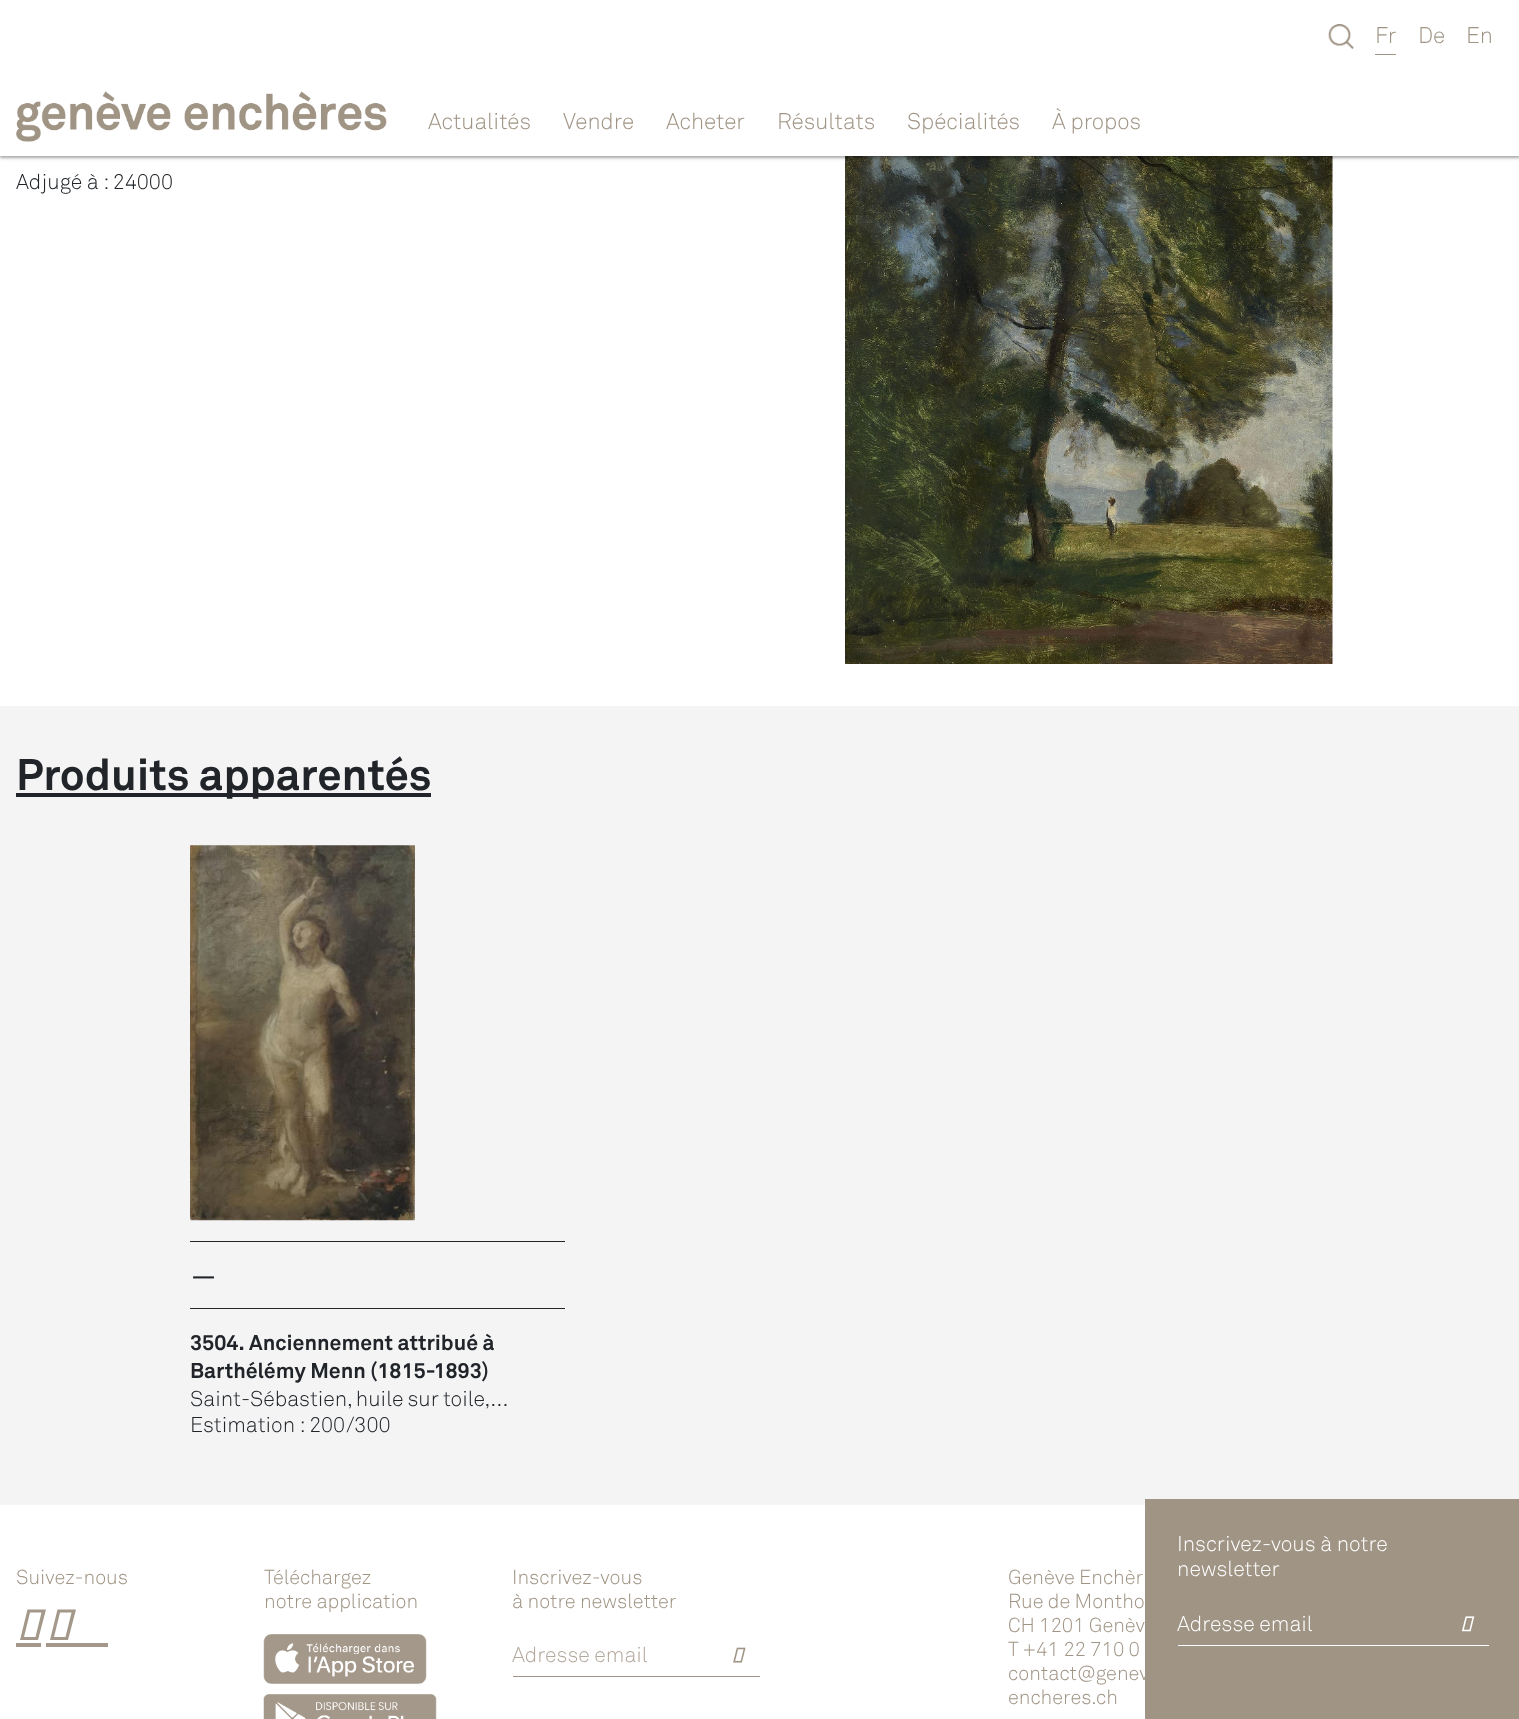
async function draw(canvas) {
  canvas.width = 1519
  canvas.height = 1719
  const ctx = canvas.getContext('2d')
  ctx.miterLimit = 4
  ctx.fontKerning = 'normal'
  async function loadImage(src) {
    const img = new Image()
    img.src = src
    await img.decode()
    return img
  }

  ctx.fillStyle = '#fff'
  ctx.fillRect(0, 0, 1519, 1719)
  ctx.drawImage(await loadImage('image2.png'), 845, 156, 488, 508)
  ctx.fillStyle = '#0000003d'
  ctx.filter = 'blur(1px)'
  ctx.beginPath()
  ctx.rect(0, 1, 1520, 157)
  ctx.fill()
  ctx.filter = 'none'
  ctx.fillStyle = '#0000001f'
  ctx.filter = 'blur(2px)'
  ctx.beginPath()
  ctx.rect(0, 1, 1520, 157)
  ctx.fill()
  ctx.filter = 'none'
  ctx.fillStyle = '#fff'
  ctx.fillRect(0, 0, 1519, 156)
  ctx.drawImage(await loadImage('image0.png'), 16, 91, 371, 51)
  ctx.drawImage(await loadImage('image1.png'), 1328, 24, 26, 25)
  ctx.fillStyle = '#a09485'
  ctx.fillRect(1375, 54, 21, 1)
  ctx.font = '300 22.5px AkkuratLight'
  ctx.fillText('Fr', 1375, 43)
  ctx.fillText('De', 1418, 43)
  ctx.fillText('En', 1466, 43)
  ctx.fillText('Actualités', 428, 129)
  ctx.fillText('Vendre', 563, 129)
  ctx.fillText('Acheter', 666, 129)
  ctx.fillText('Résultats', 777, 129)
  ctx.fillText('Spécialités', 907, 129)
  ctx.fillText('À propos', 1052, 129)
  ctx.font = '300 21.25px AkkuratLight'
  ctx.fillStyle = '#212529'
  ctx.fillText('Adjugé à : 24000', 16, 189)
  ctx.fillStyle = '#f4f4f5'
  ctx.fillRect(0, 706, 1519, 799)
  ctx.fillStyle = '#212529'
  ctx.fillRect(16, 793, 415, 4)
  ctx.font = 'bold 43.75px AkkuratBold'
  ctx.fillText('Produits apparentés', 16, 790)
  ctx.drawImage(await loadImage('image3.png'), 190, 845, 225, 376)
  ctx.fillRect(190, 1241, 375, 1)
  ctx.font = '300 45px AkkuratLight'
  ctx.fillText('−', 190, 1291)
  ctx.fillRect(190, 1308, 375, 1)
  ctx.font = 'bold 21.25px AkkuratBold'
  ctx.fillText('3504. Anciennement attribué à', 190, 1350)
  ctx.fillText('Barthélémy Menn (1815-1893)', 190, 1378)
  ctx.wordSpacing = '-0.5px'
  ctx.font = '300 21.25px AkkuratLight'
  ctx.fillText('Saint-Sébastien, huile sur toile,…', 190, 1406)
  ctx.wordSpacing = '0px'
  ctx.fillText('Estimation : 200/300', 190, 1432)
  ctx.fillStyle = '#a09485'
  ctx.fillRect(1145, 1499, 374, 220)
  ctx.fillStyle = '#fff'
  ctx.fillText('Inscrivez-vous à notre', 1177, 1551)
  ctx.fillText('newsletter', 1177, 1576)
  ctx.fillRect(1178, 1645, 311, 1)
  ctx.fillText('Adresse email', 1177, 1631)
  ctx.drawImage(await loadImage('image4.png'), 1462, 1616, 13, 16)
  ctx.font = '300 20px AkkuratLight'
  ctx.fillStyle = '#a09485'
  ctx.fillText('Suivez-nous', 16, 1584)
  ctx.fillStyle = '#a4988a'
  ctx.beginPath()
  ctx.moveTo(27.5, 1609.5)
  ctx.lineTo(46, 1609.5)
  ctx.lineTo(38, 1640)
  ctx.lineTo(20, 1640)
  ctx.closePath()
  ctx.moveTo(35.5, 1637)
  ctx.lineTo(41.5, 1612.5)
  ctx.lineTo(30, 1612.5)
  ctx.lineTo(24, 1637)
  ctx.closePath()
  ctx.fill()
  ctx.beginPath()
  ctx.moveTo(57.5, 1609.5)
  ctx.lineTo(76, 1609.5)
  ctx.lineTo(68, 1640)
  ctx.lineTo(50, 1640)
  ctx.closePath()
  ctx.moveTo(65.5, 1637)
  ctx.lineTo(71.5, 1612.5)
  ctx.lineTo(60, 1612.5)
  ctx.lineTo(54, 1637)
  ctx.closePath()
  ctx.fill()
  ctx.fillRect(16, 1643, 25, 4)
  ctx.fillRect(46, 1643, 62, 4)
  ctx.fillStyle = '#a09485'
  ctx.fillText('Téléchargez', 264, 1584)
  ctx.fillText('notre application', 264, 1608)
  ctx.drawImage(await loadImage('image5.png'), 263, 1634, 164, 50)
  ctx.drawImage(await loadImage('image6.png'), 263, 1694, 174, 25)
  ctx.fillText('Inscrivez-vous', 512, 1584)
  ctx.fillText('à notre newsletter', 512, 1608)
  ctx.fillRect(513, 1676, 247, 1)
  ctx.font = '300 21.25px AkkuratLight'
  ctx.fillStyle = '#b3a99d'
  ctx.fillText('Adresse email', 512, 1662)
  ctx.drawImage(await loadImage('image7.png'), 733, 1647, 13, 16)
  ctx.font = '300 20px AkkuratLight'
  ctx.fillStyle = '#a09485'
  ctx.fillText('Genève Enchèr', 1008, 1584)
  ctx.fillText('Rue de Montho', 1008, 1608)
  ctx.fillText('CH 1201 Genèv', 1008, 1632)
  ctx.fillText('T +41 22 710 0', 1008, 1656)
  ctx.fillText('contact@genev', 1008, 1680)
  ctx.fillText('encheres.ch', 1008, 1704)
}

draw(document.querySelector('canvas'))
